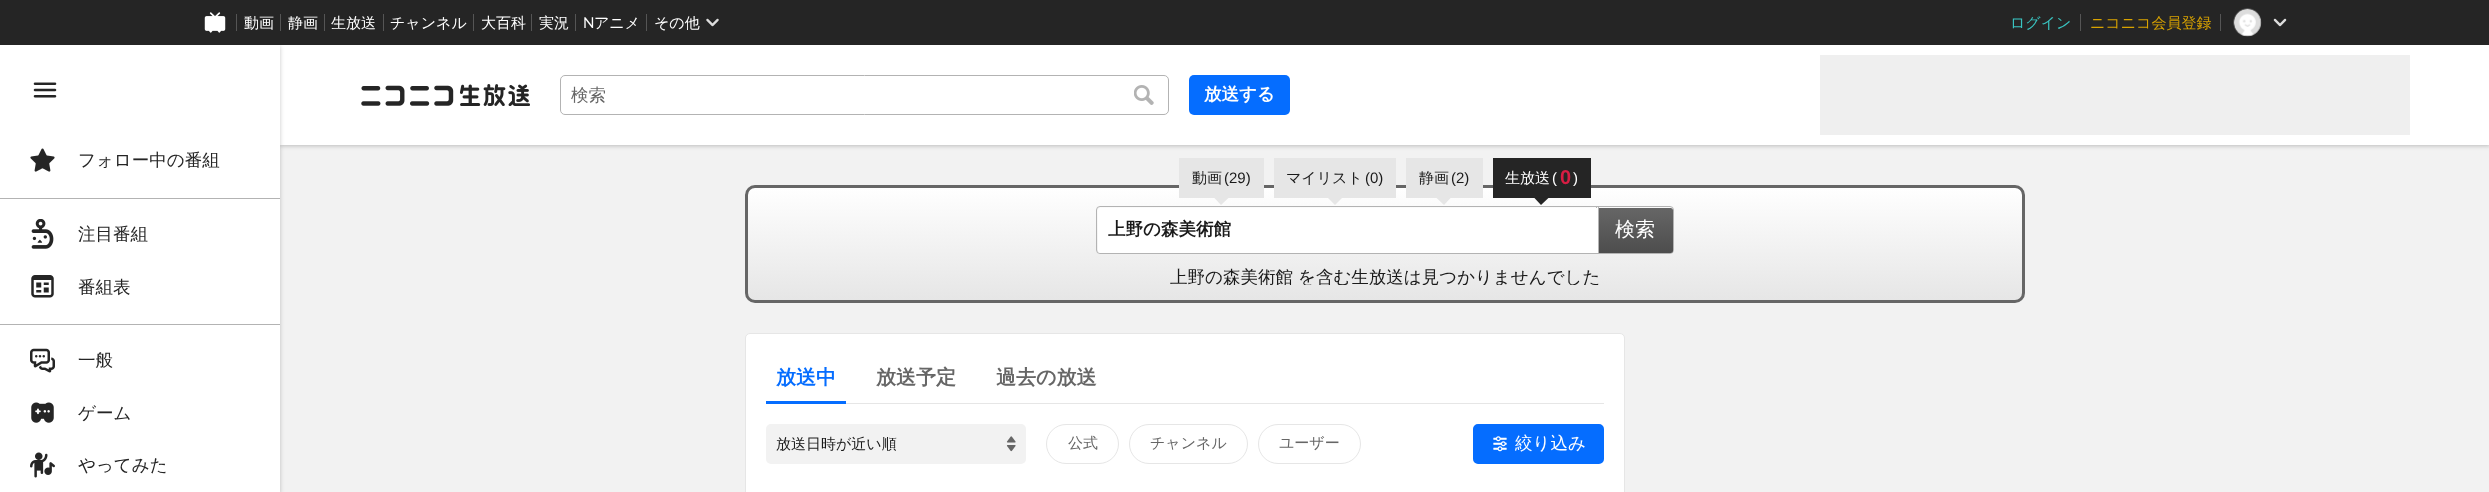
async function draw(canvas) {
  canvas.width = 2489
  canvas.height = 492
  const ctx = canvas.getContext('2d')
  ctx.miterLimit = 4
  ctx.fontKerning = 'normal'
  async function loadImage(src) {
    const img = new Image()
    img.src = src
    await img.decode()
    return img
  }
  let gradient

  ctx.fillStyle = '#f2f2f2'
  ctx.fillRect(0, 0, 2489, 492)
  ctx.fillStyle = '#1a1a1a40'
  ctx.filter = 'blur(2px)'
  ctx.beginPath()
  ctx.rect(280, 46, 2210, 100)
  ctx.fill()
  ctx.filter = 'none'
  ctx.fillStyle = '#fff'
  ctx.fillRect(280, 45, 2209, 100)
  ctx.fillStyle = '#1a1a1a40'
  ctx.filter = 'blur(2px)'
  ctx.beginPath()
  ctx.rect(0, 46, 280, 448)
  ctx.fill()
  ctx.filter = 'none'
  ctx.fillStyle = '#252525'
  ctx.fillRect(0, 0, 2489, 45)
  ctx.drawImage(await loadImage('image0.png'), 204, 12, 22, 21)
  ctx.fillStyle = '#555'
  ctx.fillRect(236, 14, 1, 17)
  ctx.font = '500 15px WenQuanYi Zen Hei'
  ctx.fillStyle = '#fff'
  ctx.fillText('動画', 244, 28)
  ctx.fillStyle = '#555'
  ctx.fillRect(280, 14, 1, 17)
  ctx.fillStyle = '#fff'
  ctx.fillText('静画', 288, 28)
  ctx.fillStyle = '#555'
  ctx.fillRect(324, 14, 1, 17)
  ctx.fillStyle = '#fff'
  ctx.fillText('生放送', 331, 28)
  ctx.fillStyle = '#555'
  ctx.fillRect(383, 14, 1, 17)
  ctx.fillStyle = '#fff'
  ctx.fillText('チャンネル', 390, 28)
  ctx.fillStyle = '#555'
  ctx.fillRect(473, 14, 1, 17)
  ctx.fillStyle = '#fff'
  ctx.fillText('大百科', 481, 28)
  ctx.fillStyle = '#555'
  ctx.fillRect(531, 14, 1, 17)
  ctx.fillStyle = '#fff'
  ctx.fillText('実況', 539, 28)
  ctx.fillStyle = '#555'
  ctx.fillRect(575, 14, 1, 17)
  ctx.font = '15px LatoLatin'
  ctx.fillStyle = '#fff'
  ctx.fillText('N', 583, 28)
  ctx.font = '500 15px WenQuanYi Zen Hei'
  ctx.fillText('アニメ', 594, 28)
  ctx.fillStyle = '#555'
  ctx.fillRect(646, 14, 1, 17)
  ctx.fillStyle = '#fff'
  ctx.fillText('その他', 654, 28)
  ctx.drawImage(await loadImage('image1.png'), 706, 18, 13, 9)
  ctx.fillStyle = '#39c4c1'
  ctx.fillText('ログイン', 2010, 28)
  ctx.fillStyle = '#555'
  ctx.fillRect(2080, 14, 1, 17)
  ctx.fillStyle = '#d9a300'
  ctx.fillText('ニコニコ会員登録', 2090, 28)
  ctx.fillStyle = '#555'
  ctx.fillRect(2220, 14, 1, 17)
  ctx.drawImage(await loadImage('image2.png'), 2233, 8, 29, 29)
  ctx.drawImage(await loadImage('image3.png'), 2273, 18, 14, 9)
  ctx.fillStyle = '#fff'
  ctx.fillRect(0, 45, 280, 447)
  ctx.drawImage(await loadImage('image4.png'), 33, 82, 24, 16)
  ctx.drawImage(await loadImage('image5.png'), 30, 148, 25, 24)
  ctx.font = '500 17.5px WenQuanYi Zen Hei'
  ctx.fillStyle = '#252525'
  ctx.fillText('フォロー中の番組', 78, 166)
  ctx.fillStyle = '#b3b3b3'
  ctx.fillRect(0, 198, 280, 1)
  ctx.drawImage(await loadImage('image6.png'), 31, 219, 23, 30)
  ctx.fillStyle = '#252525'
  ctx.fillText('注目番組', 78, 240)
  ctx.drawImage(await loadImage('image7.png'), 31, 275, 23, 23)
  ctx.fillText('番組表', 78, 293)
  ctx.fillStyle = '#b3b3b3'
  ctx.fillRect(0, 324, 280, 1)
  ctx.drawImage(await loadImage('image8.png'), 30, 348, 25, 25)
  ctx.fillStyle = '#252525'
  ctx.fillText('一般', 78, 366)
  ctx.drawImage(await loadImage('image9.png'), 31, 402, 23, 21)
  ctx.fillText('ゲーム', 78, 419)
  ctx.drawImage(await loadImage('image10.png'), 30, 452, 25, 26)
  ctx.fillText('やってみた', 78, 471)
  ctx.drawImage(await loadImage('image11.png'), 361, 84, 169, 22)
  ctx.beginPath()
  ctx.roundRect(560.5, 75.5, 608, 39, 4.5)
  ctx.strokeStyle = '#b3b3b3'
  ctx.stroke()
  ctx.fillStyle = '#666'
  ctx.fillText('検索', 571, 101)
  ctx.drawImage(await loadImage('image12.png'), 1134, 85, 20, 20)
  ctx.fillStyle = '#056dff'
  ctx.beginPath()
  ctx.roundRect(1189, 75, 101, 40, 5)
  ctx.fill()
  ctx.font = 'bold 17.5px WenQuanYi Zen Hei'
  ctx.fillStyle = '#fff'
  ctx.fillText('放送する', 1204, 100)
  ctx.fillStyle = '#efefef'
  ctx.fillRect(1820, 55, 590, 80)
  ctx.save()
  ctx.beginPath()
  ctx.roundRect(745, 185, 1280, 118, 10)
  ctx.clip()
  gradient = ctx.createLinearGradient(1385, 187, 1385, 300)
  gradient.addColorStop(0, '#fff')
  gradient.addColorStop(1, '#e6e6e6')
  ctx.fillStyle = gradient
  ctx.fillRect(745, 188, 1280, 112)
  ctx.restore()
  ctx.beginPath()
  ctx.roundRect(746.5, 186.5, 1277, 115, 8.5)
  ctx.strokeStyle = '#666'
  ctx.lineWidth = 3
  ctx.stroke()
  ctx.fillStyle = '#e6e6e6'
  ctx.fillRect(1179, 158, 85, 40)
  ctx.font = '500 15px WenQuanYi Zen Hei'
  ctx.fillStyle = '#1a1a1a'
  ctx.fillText('動画', 1192, 183)
  ctx.font = '15px Liberation Sans'
  ctx.fillText('(29)', 1224, 183)
  ctx.fillStyle = '#e6e6e6'
  ctx.beginPath()
  ctx.moveTo(1214, 197.5)
  ctx.lineTo(1229, 197.5)
  ctx.lineTo(1221, 205)
  ctx.closePath()
  ctx.fill()
  ctx.fillRect(1274, 158, 122, 40)
  ctx.font = '500 15px WenQuanYi Zen Hei'
  ctx.fillStyle = '#1a1a1a'
  ctx.fillText('マイリスト', 1286, 183)
  ctx.font = '15px Liberation Sans'
  ctx.fillText('(0)', 1365, 183)
  ctx.fillStyle = '#e6e6e6'
  ctx.beginPath()
  ctx.moveTo(1327.5, 197.5)
  ctx.lineTo(1342.5, 197.5)
  ctx.lineTo(1335, 205)
  ctx.closePath()
  ctx.fill()
  ctx.fillRect(1406, 158, 77, 40)
  ctx.font = '500 15px WenQuanYi Zen Hei'
  ctx.fillStyle = '#1a1a1a'
  ctx.fillText('静画', 1419, 183)
  ctx.font = '15px Liberation Sans'
  ctx.fillText('(2)', 1451, 183)
  ctx.fillStyle = '#e6e6e6'
  ctx.beginPath()
  ctx.moveTo(1436, 197.5)
  ctx.lineTo(1451, 197.5)
  ctx.lineTo(1444, 205)
  ctx.closePath()
  ctx.fill()
  ctx.fillStyle = '#252525'
  ctx.fillRect(1493, 158, 98, 40)
  ctx.font = '500 15px WenQuanYi Zen Hei'
  ctx.fillStyle = '#fff'
  ctx.fillText('生放送', 1505, 183)
  ctx.font = '15px Liberation Sans'
  ctx.fillText('(', 1552, 183)
  ctx.font = 'bold 20px Liberation Sans'
  ctx.fillStyle = '#d71d43'
  ctx.fillText('0', 1560, 184)
  ctx.font = '15px Liberation Sans'
  ctx.fillStyle = '#fff'
  ctx.fillText(')', 1573, 183)
  ctx.fillStyle = '#252525'
  ctx.beginPath()
  ctx.moveTo(1534, 197.5)
  ctx.lineTo(1549, 197.5)
  ctx.lineTo(1541, 205)
  ctx.closePath()
  ctx.fill()
  ctx.beginPath()
  ctx.roundRect(1596.5, 206.5, 77, 47, [0, 3.5, 3.5, 0])
  ctx.strokeStyle = '#b3b3b3'
  ctx.lineWidth = 1
  ctx.stroke()
  gradient = ctx.createLinearGradient(1635, 208, 1635, 253)
  gradient.addColorStop(0, '#666')
  gradient.addColorStop(1, '#4d4d4d')
  ctx.fillStyle = gradient
  ctx.beginPath()
  ctx.roundRect(1598, 208, 75, 45, [0, 2.5, 2.5, 0])
  ctx.fill()
  ctx.beginPath()
  ctx.roundRect(1096.5, 206.5, 502, 47, [3.5, 0, 0, 3.5])
  ctx.stroke()
  ctx.fillStyle = '#fff'
  ctx.beginPath()
  ctx.roundRect(1098, 208, 500, 45, [2.5, 0, 0, 2.5])
  ctx.fill()
  ctx.font = 'bold 17.5px WenQuanYi Zen Hei'
  ctx.fillStyle = '#1a1a1a'
  ctx.fillText('上野の森美術館', 1108, 235)
  ctx.font = '500 20px WenQuanYi Zen Hei'
  ctx.fillStyle = '#fff'
  ctx.fillText('検索', 1615, 236)
  ctx.save()
  ctx.beginPath()
  ctx.rect(1170, 268, 123, 17)
  ctx.clip()
  ctx.font = '500 17.5px WenQuanYi Zen Hei'
  ctx.fillStyle = '#1a1a1a'
  ctx.fillText('上野の森美術館', 1170, 283)
  ctx.restore()
  ctx.save()
  ctx.beginPath()
  ctx.rect(748, 268, 1275, 17)
  ctx.clip()
  ctx.font = '500 17.5px WenQuanYi Zen Hei'
  ctx.fillStyle = '#1a1a1a'
  ctx.fillText('を含む生放送は見つかりませんでした', 1298, 283)
  ctx.restore()
  ctx.beginPath()
  ctx.roundRect(745.5, 333.5, 879, 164, 4.5)
  ctx.fill()
  ctx.strokeStyle = '#e6e6e6'
  ctx.stroke()
  ctx.fillStyle = '#e6e6e6'
  ctx.fillRect(846, 403, 758, 1)
  ctx.fillStyle = '#056dff'
  ctx.fillRect(766, 401, 80, 3)
  ctx.font = 'bold 20px WenQuanYi Zen Hei'
  ctx.fillText('放送中', 776, 384)
  ctx.fillStyle = '#666'
  ctx.fillText('放送予定', 876, 384)
  ctx.fillText('過去の放送', 996, 384)
  ctx.fillStyle = '#f2f2f2'
  ctx.beginPath()
  ctx.roundRect(766, 424, 260, 40, 5)
  ctx.fill()
  ctx.drawImage(await loadImage('image13.png'), 1006, 436, 10, 16)
  ctx.save()
  ctx.beginPath()
  ctx.rect(776, 436, 218, 15)
  ctx.clip()
  ctx.font = '500 15px WenQuanYi Zen Hei'
  ctx.fillStyle = '#1a1a1a'
  ctx.fillText('放送日時が近い順', 776, 449)
  ctx.restore()
  ctx.beginPath()
  ctx.roundRect(1046.5, 424.5, 72, 39, 19.5)
  ctx.stroke()
  ctx.font = '500 15px WenQuanYi Zen Hei'
  ctx.fillStyle = '#666'
  ctx.fillText('公式', 1068, 448)
  ctx.beginPath()
  ctx.roundRect(1129.5, 424.5, 118, 39, 19.5)
  ctx.stroke()
  ctx.fillText('チャンネル', 1150, 448)
  ctx.beginPath()
  ctx.roundRect(1258.5, 424.5, 102, 39, 19.5)
  ctx.stroke()
  ctx.fillText('ユーザー', 1279, 448)
  ctx.fillStyle = '#056dff'
  ctx.beginPath()
  ctx.roundRect(1474.5, 425.5, 128, 37, 3.5)
  ctx.fill()
  ctx.strokeStyle = '#056dff'
  ctx.lineWidth = 3
  ctx.stroke()
  ctx.drawImage(await loadImage('image14.png'), 1493, 436, 14, 16)
  ctx.font = '500 17.5px WenQuanYi Zen Hei'
  ctx.fillStyle = '#fff'
  ctx.fillText('絞り込み', 1515, 449)
}

draw(document.querySelector('canvas'))
